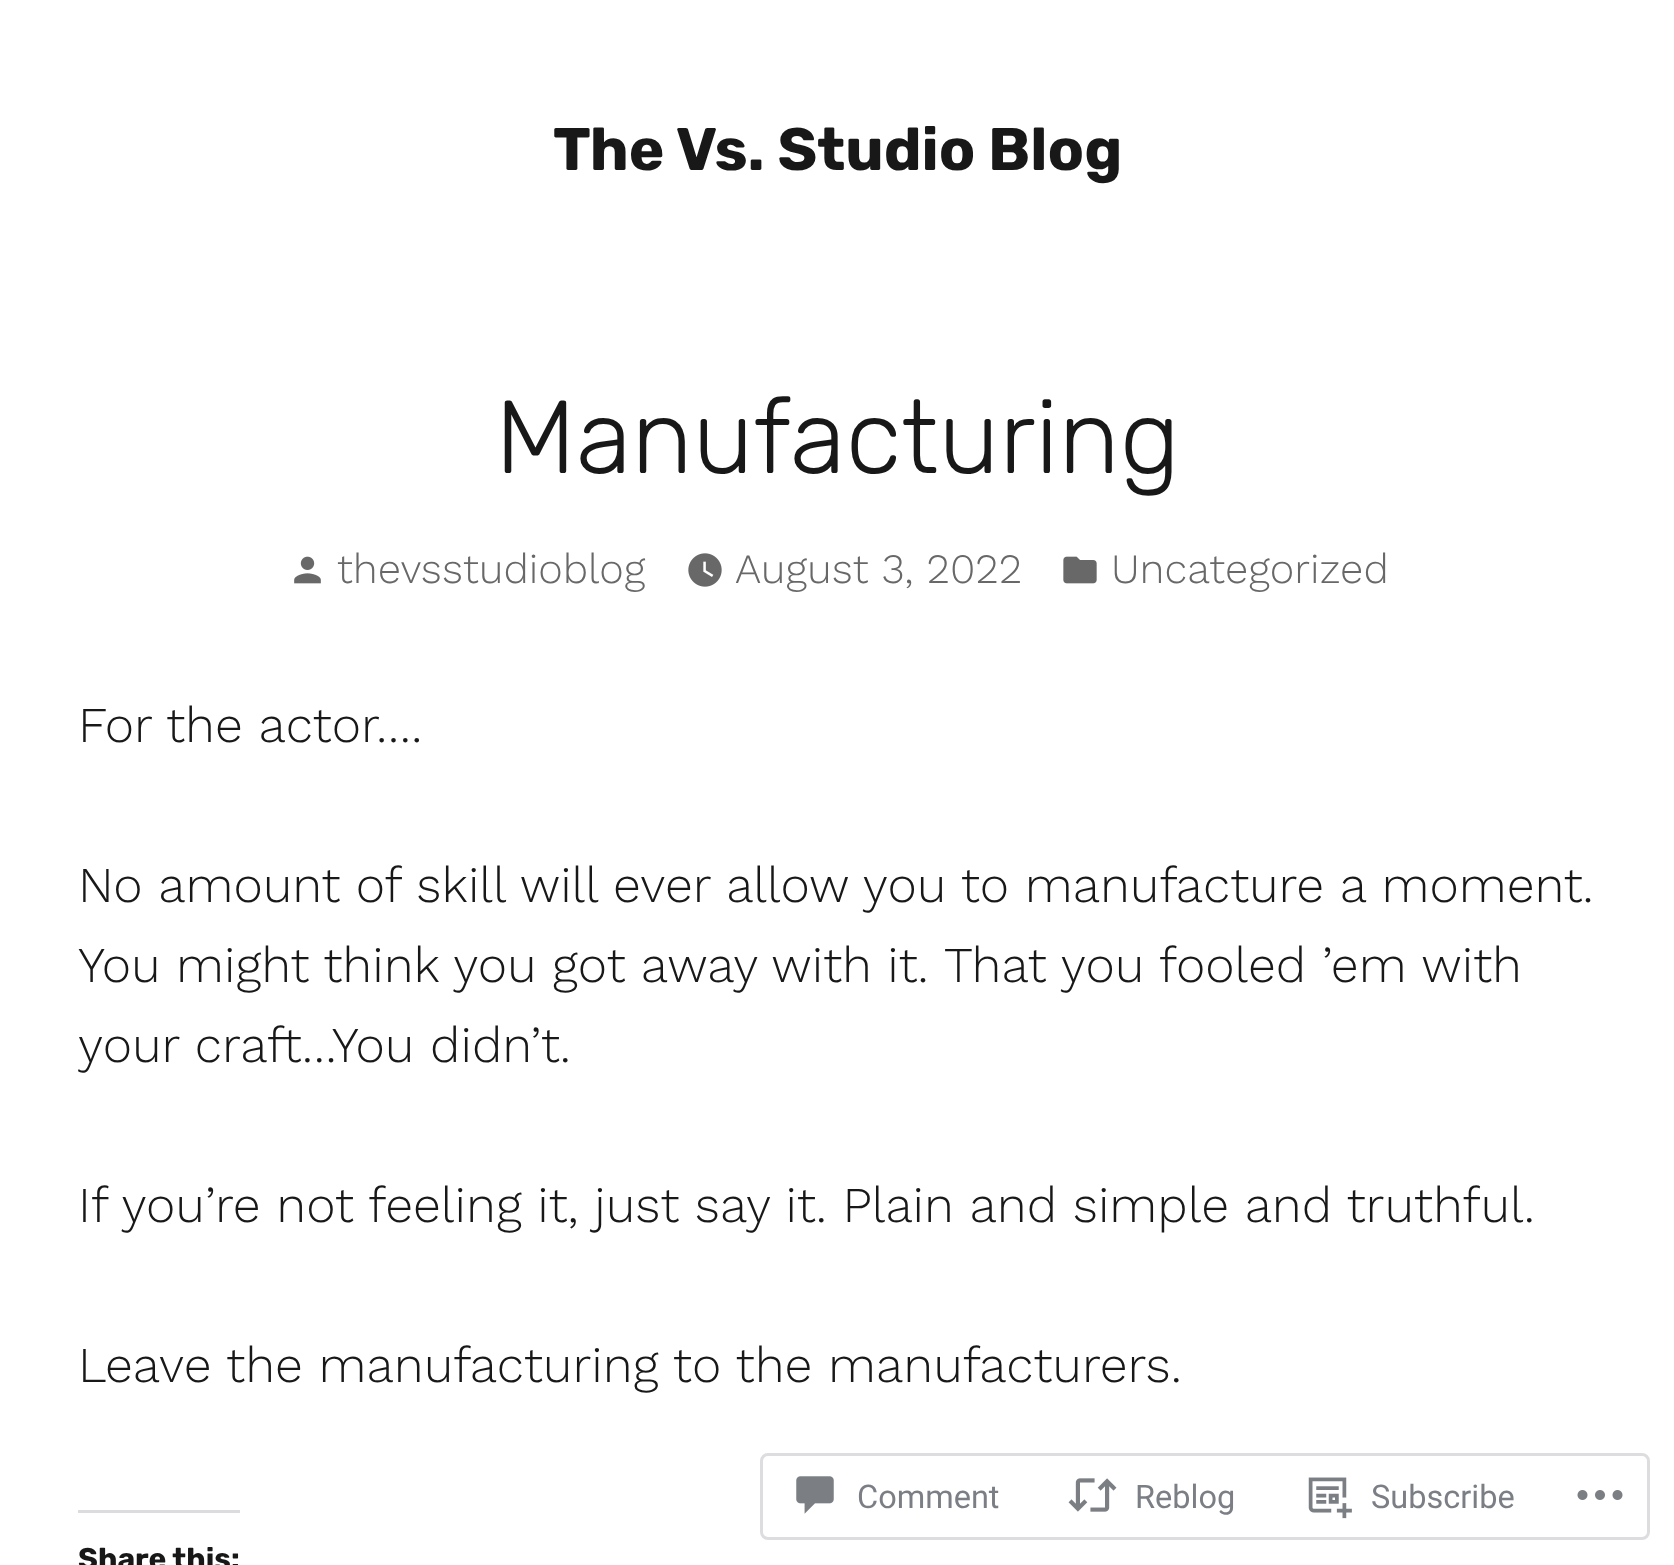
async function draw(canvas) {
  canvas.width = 1674
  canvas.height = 1565
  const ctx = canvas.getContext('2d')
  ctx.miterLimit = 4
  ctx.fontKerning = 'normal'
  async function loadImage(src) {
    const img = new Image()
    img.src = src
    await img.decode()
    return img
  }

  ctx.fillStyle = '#fff'
  ctx.fillRect(0, 0, 1674, 1565)
  ctx.font = 'bold 60px Rubik'
  ctx.fillStyle = '#181818'
  ctx.fillText('The Vs. Studio Blog', 553, 170)
  ctx.font = '300 103.75px Rubik'
  ctx.fillText('Manufacturing', 495, 473)
  ctx.drawImage(await loadImage('image0.png'), 294, 556, 27, 28)
  ctx.font = '300 41.75px Work Sans'
  ctx.fillStyle = '#686868'
  ctx.fillText('thevsstudioblog', 337, 583)
  ctx.drawImage(await loadImage('image1.png'), 688, 553, 34, 34)
  ctx.fillText('August 3, 2022', 735, 583)
  ctx.drawImage(await loadImage('image2.png'), 1063, 556, 34, 28)
  ctx.fillText('Uncategorized', 1111, 583)
  ctx.font = '300 50px Work Sans'
  ctx.fillStyle = '#181818'
  ctx.fillText('For the actor….', 78, 742)
  ctx.fillText('No amount of skill will ever allow you to manufacture a moment.', 78, 902)
  ctx.wordSpacing = '-0.25px'
  ctx.fillText('You might think you got away with it.', 78, 982)
  ctx.wordSpacing = '0px'
  ctx.fillText('That you fooled ’em with', 944, 982)
  ctx.fillText('your craft…You didn’t.', 78, 1062)
  ctx.fillText('If you’re not feeling it, just say it. Plain and simple and truthful.', 78, 1222)
  ctx.fillText('Leave the manufacturing to the manufacturers.', 78, 1382)
  ctx.fillStyle = '#dcdcde'
  ctx.fillRect(78, 1510, 162, 3)
  ctx.font = 'bold 30px Rubik'
  ctx.fillStyle = '#181818'
  ctx.fillText('Share this:', 78, 1569)
  ctx.beginPath()
  ctx.roundRect(761.5, 1454.5, 887, 84, 6.5)
  ctx.strokeStyle = '#dddddf'
  ctx.lineWidth = 3
  ctx.stroke()
  ctx.drawImage(await loadImage('image3.png'), 796, 1476, 38, 38)
  ctx.font = '32.5px Roboto'
  ctx.fillStyle = '#7b7f85'
  ctx.fillText('Comment', 857, 1508)
  ctx.drawImage(await loadImage('image4.png'), 1068, 1478, 49, 34)
  ctx.fillText('Reblog', 1135, 1508)
  ctx.drawImage(await loadImage('image5.png'), 1308, 1477, 44, 42)
  ctx.fillText('Subscribe', 1371, 1508)
  ctx.drawImage(await loadImage('image6.png'), 1577, 1490, 46, 10)
}

draw(document.querySelector('canvas'))
